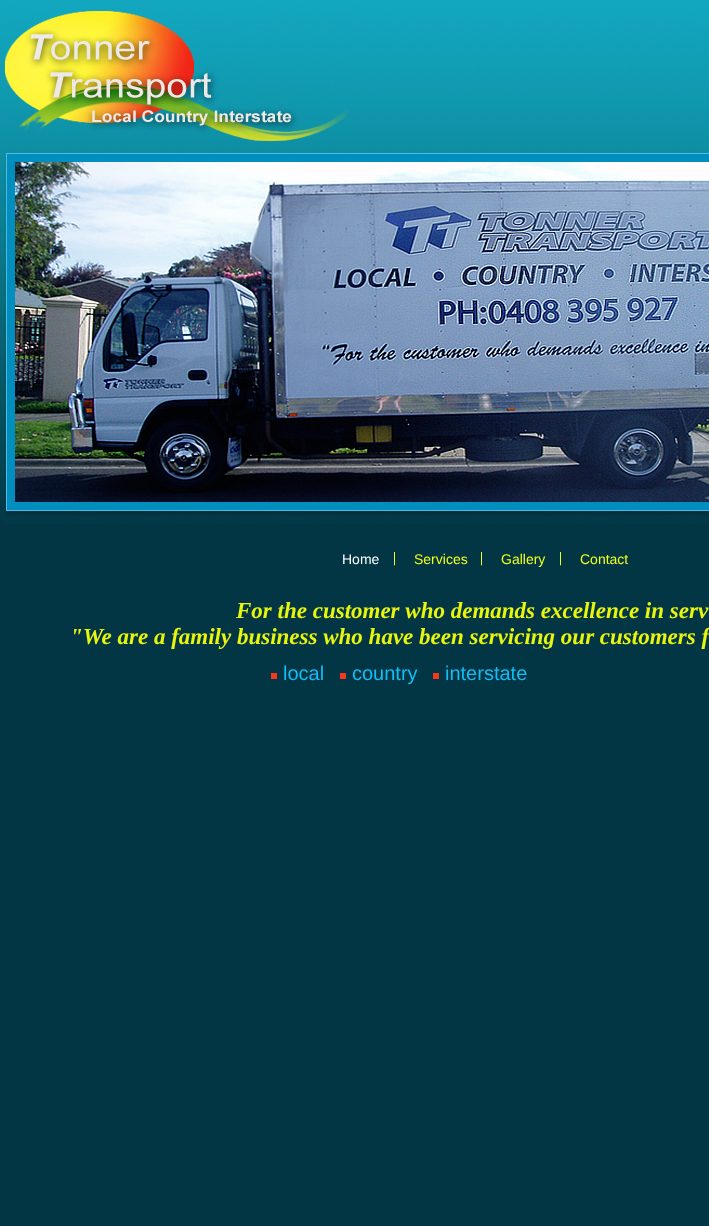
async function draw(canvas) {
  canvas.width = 709
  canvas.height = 1226
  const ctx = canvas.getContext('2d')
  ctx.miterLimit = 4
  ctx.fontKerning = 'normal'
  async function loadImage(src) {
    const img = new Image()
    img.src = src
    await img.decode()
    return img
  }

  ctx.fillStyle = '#033645'
  ctx.fillRect(0, 0, 709, 1226)
  ctx.drawImage(await loadImage('image0.png'), 0, 0, 709, 519)
  ctx.drawImage(await loadImage('image1.png'), 0, 4, 360, 137)
  ctx.drawImage(await loadImage('image2.png'), 2, 153, 707, 371)
  ctx.drawImage(await loadImage('image3.png'), 15, 162, 694, 340)
  ctx.font = '14px Liberation Sans'
  ctx.fillStyle = '#fff'
  ctx.fillText('Home', 342, 564)
  ctx.drawImage(await loadImage('image4.png'), 394, 552, 1, 14)
  ctx.fillStyle = '#f1ff18'
  ctx.fillText('Services', 414, 564)
  ctx.drawImage(await loadImage('image4.png'), 481, 552, 1, 14)
  ctx.fillText('Gallery', 501, 564)
  ctx.drawImage(await loadImage('image4.png'), 560, 552, 1, 14)
  ctx.fillText('Contact', 580, 564)
  ctx.font = 'italic bold 23px Liberation Serif'
  ctx.fillStyle = '#e7f50f'
  ctx.fillText('For the customer who demands excellence in serv', 236, 618)
  ctx.fillText('"We are a family business who have been servicing our customers f', 70, 644)
  ctx.font = '20px Liberation Sans'
  ctx.fillStyle = '#12bcf4'
  ctx.fillText('local', 283, 680)
  ctx.fillStyle = '#f5381f'
  ctx.fillRect(271, 673, 6, 6)
  ctx.fillStyle = '#12bcf4'
  ctx.fillText('country', 352, 680)
  ctx.fillStyle = '#f5381f'
  ctx.fillRect(340, 673, 6, 6)
  ctx.fillStyle = '#12bcf4'
  ctx.fillText('interstate', 445, 680)
  ctx.fillStyle = '#f5381f'
  ctx.fillRect(433, 673, 6, 6)
}

draw(document.querySelector('canvas'))
